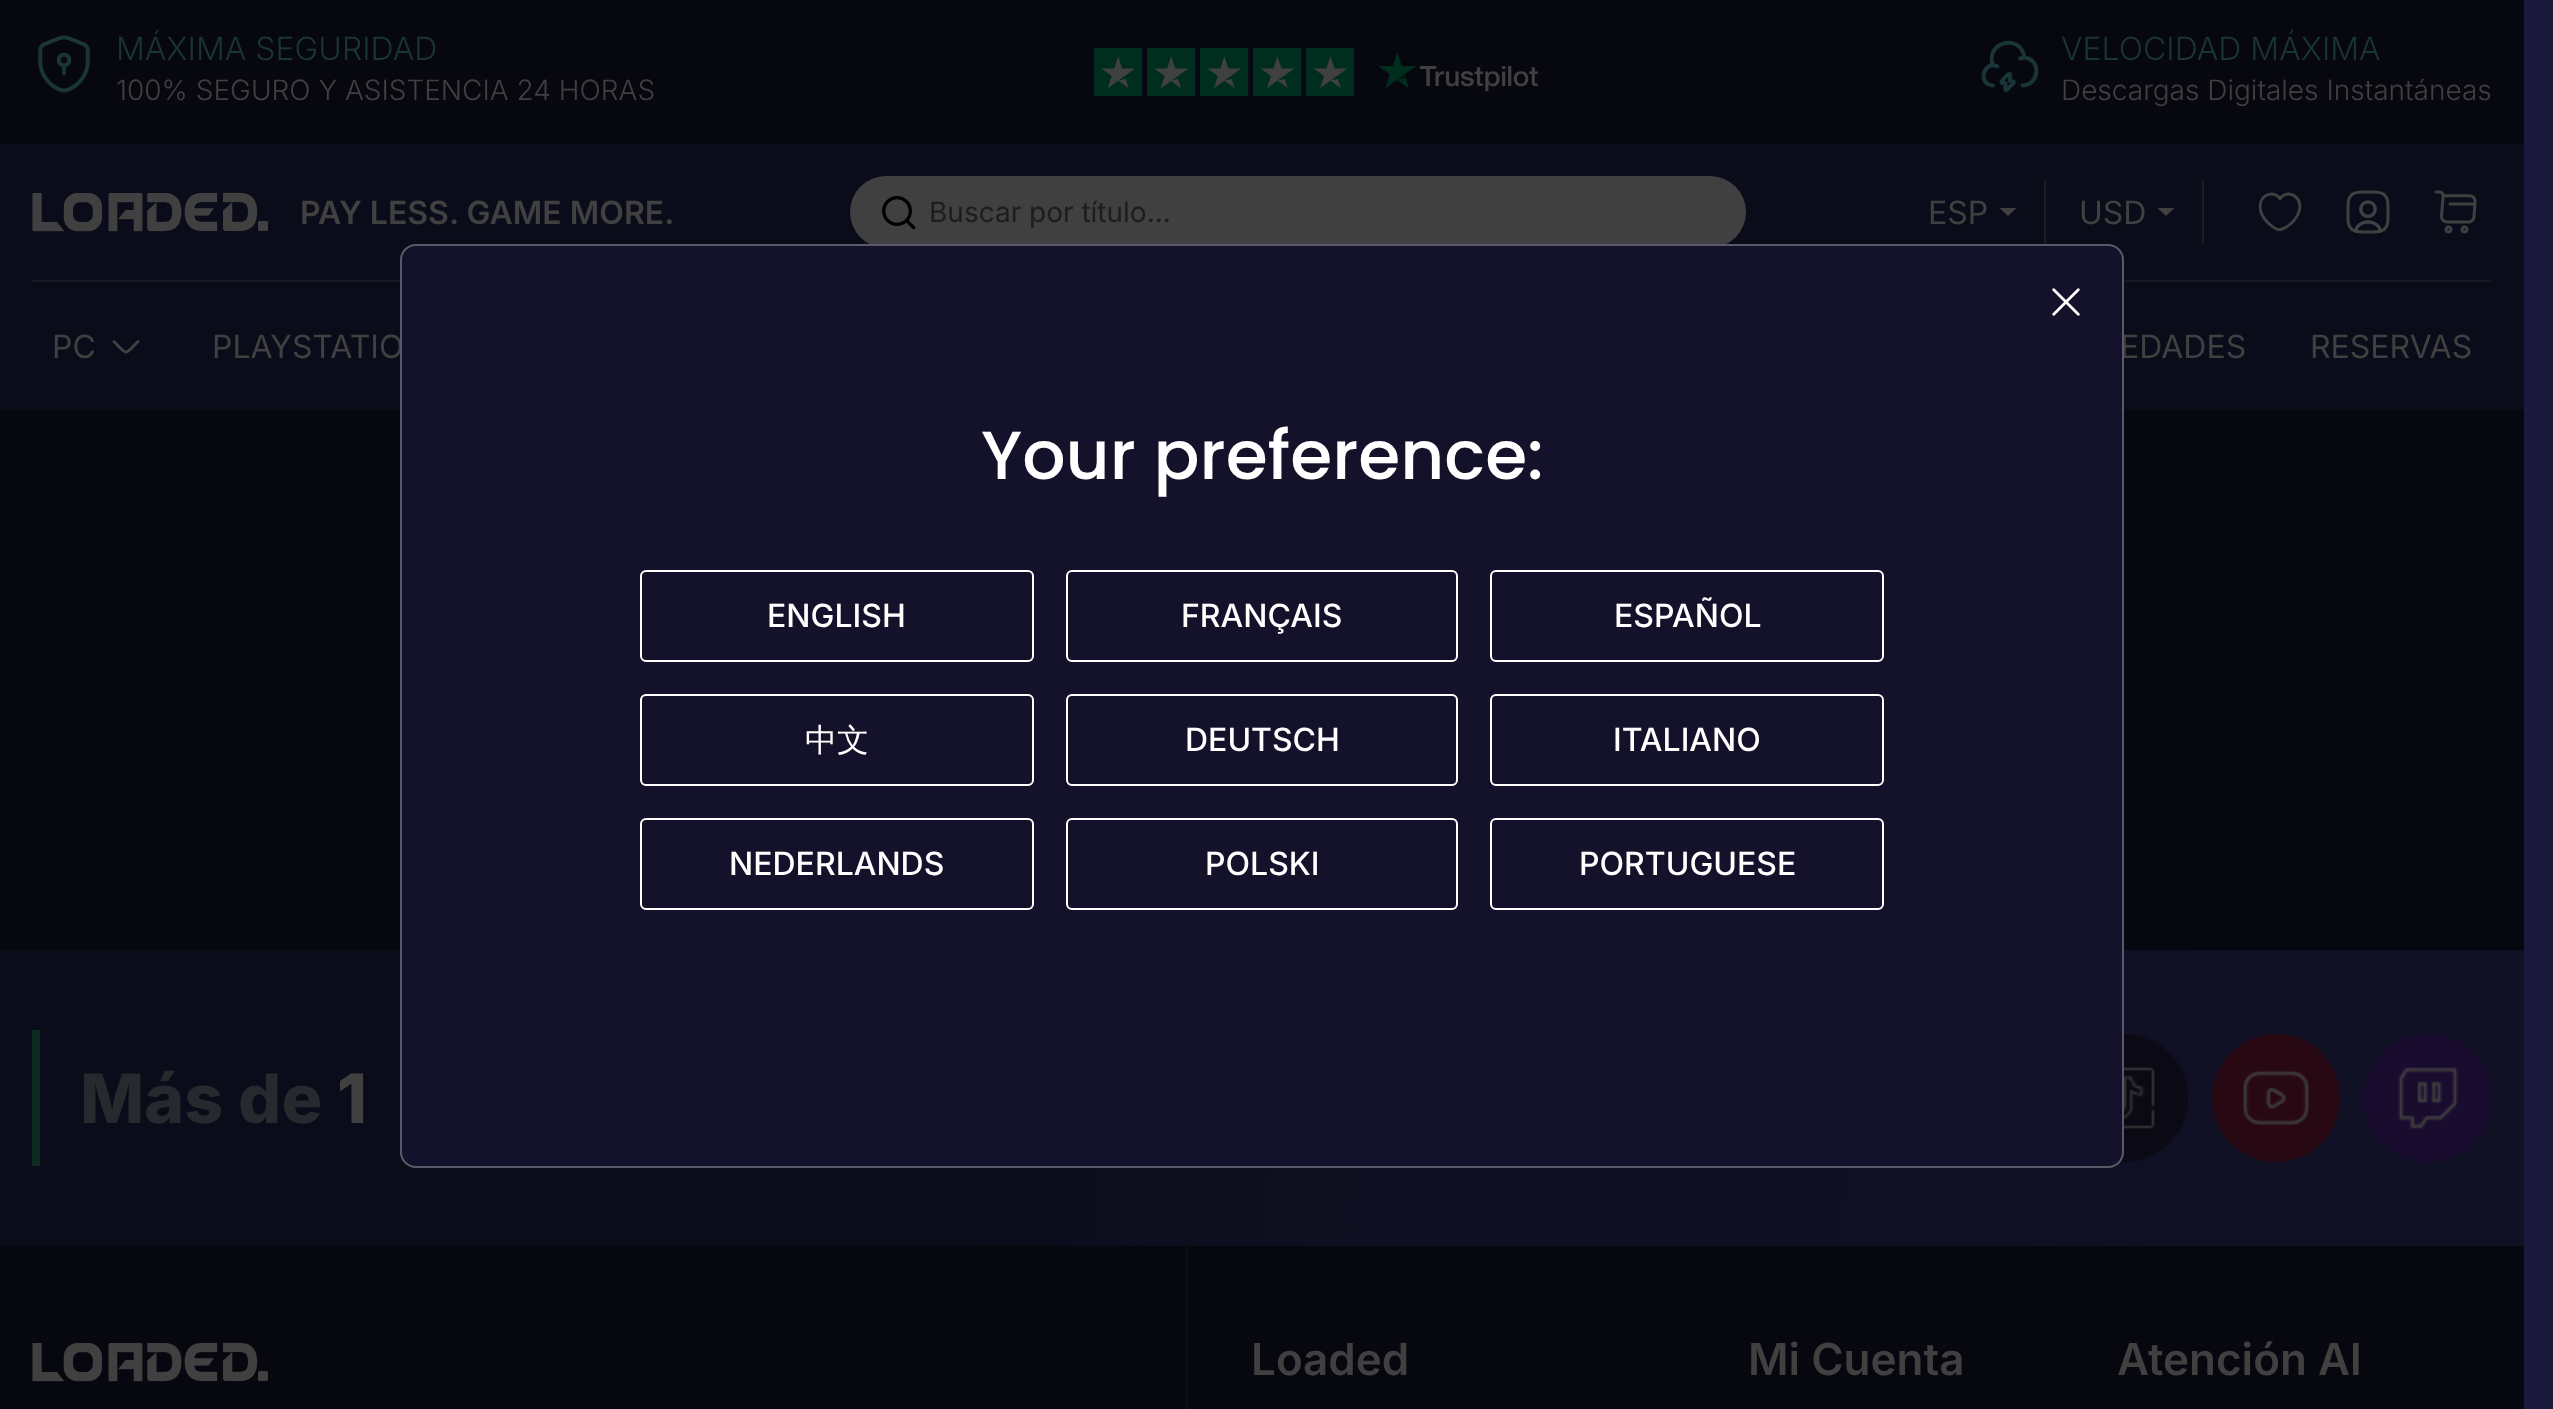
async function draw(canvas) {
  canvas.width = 2553
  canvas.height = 1409
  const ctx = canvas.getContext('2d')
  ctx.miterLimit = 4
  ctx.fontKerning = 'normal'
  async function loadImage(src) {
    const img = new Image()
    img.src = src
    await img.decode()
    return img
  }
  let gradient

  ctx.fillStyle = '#1b193b'
  ctx.fillRect(0, 0, 2553, 1409)
  ctx.fillStyle = '#07070f'
  ctx.fillRect(0, 0, 2524, 1409)
  ctx.drawImage(await loadImage('image0.png'), 38, 35, 52, 58)
  ctx.font = '300 32px Inter'
  ctx.fillStyle = '#1a3537'
  ctx.fillText('MÁXIMA SEGURIDAD', 116, 60)
  ctx.font = '300 28px Inter'
  ctx.fillStyle = '#404040'
  ctx.fillText('100% SEGURO Y ASISTENCIA 24 HORAS', 116, 100)
  ctx.drawImage(await loadImage('image1.png'), 1094, 48, 444, 48)
  ctx.beginPath()
  ctx.moveTo(2022.5, 85.5)
  ctx.bezierCurveTo(2039, 85.5, 2042, 59.5, 2024.5, 57.5)
  ctx.bezierCurveTo(2020.5, 32.5, 1984.5, 42, 1993, 65.5)
  ctx.moveTo(1997.5, 66.5)
  ctx.bezierCurveTo(1984, 60, 1976.5, 84, 1993, 85.5)
  ctx.moveTo(2020, 58.5)
  ctx.lineTo(2024.5, 57.5)
  ctx.moveTo(2002.5, 83)
  ctx.lineTo(2005.5, 83)
  ctx.bezierCurveTo(2005.5, 88, 2004, 93.5, 2009, 87.5)
  ctx.bezierCurveTo(2012.5, 84, 2017.5, 81, 2010, 81)
  ctx.bezierCurveTo(2010, 76, 2011.5, 70.5, 2006, 76.5)
  ctx.bezierCurveTo(2005.5, 77, 1999, 83, 2002.5, 83)
  ctx.closePath()
  ctx.strokeStyle = '#1a3537'
  ctx.lineWidth = 4
  ctx.lineCap = 'round'
  ctx.lineJoin = 'round'
  ctx.stroke()
  ctx.font = '300 32px Inter'
  ctx.fillStyle = '#1a3537'
  ctx.fillText('VELOCIDAD MÁXIMA', 2061, 60)
  ctx.font = '300 28px Inter'
  ctx.fillStyle = '#404040'
  ctx.fillText('Descargas Digitales Instantáneas', 2061, 100)
  ctx.fillStyle = '#0b0c1a'
  ctx.fillRect(0, 144, 2524, 266)
  ctx.drawImage(await loadImage('image2.png'), 32, 192, 236, 40)
  ctx.font = '600 32px Inter'
  ctx.fillStyle = '#404040'
  ctx.fillText('PAY LESS. GAME MORE.', 300, 224)
  ctx.beginPath()
  ctx.roundRect(850, 176, 896, 72, 36)
  ctx.fill()
  ctx.drawImage(await loadImage('image3.png'), 882, 196, 34, 34)
  ctx.font = '28px Inter'
  ctx.fillStyle = '#1b1d20'
  ctx.fillText('Buscar por título...', 929, 222)
  ctx.fillStyle = '#1b1c25'
  ctx.fillRect(2044, 180, 2, 64)
  ctx.font = '32px Inter'
  ctx.fillStyle = '#404040'
  ctx.fillText('ESP', 1928, 224)
  ctx.beginPath()
  ctx.moveTo(1999.5, 208)
  ctx.lineTo(2008, 216)
  ctx.lineTo(2016.5, 208)
  ctx.closePath()
  ctx.fill()
  ctx.fillStyle = '#1b1c25'
  ctx.fillRect(2202, 180, 2, 64)
  ctx.fillStyle = '#404040'
  ctx.fillText('USD', 2079, 224)
  ctx.beginPath()
  ctx.moveTo(2157.5, 208)
  ctx.lineTo(2166, 216)
  ctx.lineTo(2174.5, 208)
  ctx.closePath()
  ctx.fill()
  ctx.beginPath()
  ctx.moveTo(2281, 229.5)
  ctx.bezierCurveTo(2277.5, 231, 2272.5, 226.5, 2270.5, 225)
  ctx.bezierCurveTo(2265.5, 221, 2262, 216, 2260.5, 210.5)
  ctx.bezierCurveTo(2257.5, 196, 2272.5, 188.5, 2280, 198.5)
  ctx.bezierCurveTo(2289, 186.5, 2308.5, 200, 2295.5, 218.5)
  ctx.bezierCurveTo(2292, 223.5, 2287, 227.5, 2281, 229.5)
  ctx.closePath()
  ctx.strokeStyle = '#404040'
  ctx.lineWidth = 3
  ctx.stroke()
  ctx.drawImage(await loadImage('image4.png'), 2346, 190, 44, 44)
  ctx.drawImage(await loadImage('image5.png'), 2434, 190, 43, 44)
  ctx.fillStyle = '#181823'
  ctx.fillRect(32, 280, 2460, 2)
  ctx.fillStyle = '#404040'
  ctx.fillText('PC', 52, 358)
  ctx.beginPath()
  ctx.moveTo(138, 341.5)
  ctx.bezierCurveTo(124, 355.5, 128, 355.5, 114, 341.5)
  ctx.stroke()
  ctx.fillText('PLAYSTATIO', 212, 358)
  ctx.fillText('EDADES', 2120, 358)
  ctx.fillText('RESERVAS', 2310, 358)
  gradient = ctx.createLinearGradient(-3.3, 987, 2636, 1218)
  gradient.addColorStop(0.35, '#0b0c1a')
  gradient.addColorStop(0.57, '#0f1022')
  gradient.addColorStop(1, '#111126')
  ctx.fillStyle = gradient
  ctx.fillRect(0, 950, 2524, 296)
  ctx.fillStyle = '#0d2c1f'
  ctx.fillRect(32, 1030, 8, 136)
  ctx.font = '800 68px Inter'
  ctx.fillStyle = '#28282f'
  ctx.fillText('Más de', 80, 1123)
  ctx.fillStyle = '#404040'
  ctx.fillText('1', 337, 1123)
  ctx.drawImage(await loadImage('image6.png'), 2120, 1034, 68, 128)
  ctx.drawImage(await loadImage('image7.png'), 2212, 1034, 128, 128)
  ctx.drawImage(await loadImage('image8.png'), 2364, 1034, 128, 128)
  ctx.fillStyle = '#0e0e15'
  ctx.fillRect(1186, 1246, 2, 163)
  ctx.drawImage(await loadImage('image9.png'), 32, 1342, 236, 40)
  ctx.font = '600 44px Inter'
  ctx.fillStyle = '#404040'
  ctx.fillText('Loaded', 1251, 1375)
  ctx.fillText('Mi Cuenta', 1748, 1375)
  ctx.fillText('Atención Al', 2117, 1375)
  ctx.beginPath()
  ctx.roundRect(401, 245, 1722, 922, 15)
  ctx.strokeStyle = '#8080804d'
  ctx.lineWidth = 2
  ctx.lineJoin = 'miter'
  ctx.stroke()
  ctx.fillStyle = '#13122a'
  ctx.beginPath()
  ctx.roundRect(400, 244, 1724, 924, 16)
  ctx.fill()
  ctx.beginPath()
  ctx.roundRect(401, 245, 1722, 922, 15)
  ctx.strokeStyle = '#ffffff4d'
  ctx.stroke()
  ctx.drawImage(await loadImage('image10.png'), 2052, 288, 28, 28)
  ctx.font = '500 68px Poppins'
  ctx.fillStyle = '#fff'
  ctx.fillText('Your preference:', 981, 479)
  ctx.beginPath()
  ctx.roundRect(641, 571, 392, 90, 5)
  ctx.strokeStyle = '#fff'
  ctx.stroke()
  ctx.font = '500 32px Inter'
  ctx.fillText('ENGLISH', 767, 627)
  ctx.beginPath()
  ctx.roundRect(1067, 571, 390, 90, 5)
  ctx.stroke()
  ctx.fillText('FRANÇAIS', 1181, 627)
  ctx.beginPath()
  ctx.roundRect(1491, 571, 392, 90, 5)
  ctx.stroke()
  ctx.fillText('ESPAÑOL', 1614, 627)
  ctx.beginPath()
  ctx.roundRect(641, 695, 392, 90, 5)
  ctx.stroke()
  ctx.font = '500 32px WenQuanYi Zen Hei'
  ctx.fillText('中文', 805, 751)
  ctx.beginPath()
  ctx.roundRect(1067, 695, 390, 90, 5)
  ctx.stroke()
  ctx.font = '500 32px Inter'
  ctx.fillText('DEUTSCH', 1185, 751)
  ctx.beginPath()
  ctx.roundRect(1491, 695, 392, 90, 5)
  ctx.stroke()
  ctx.fillText('ITALIANO', 1613, 751)
  ctx.beginPath()
  ctx.roundRect(641, 819, 392, 90, 5)
  ctx.stroke()
  ctx.fillText('NEDERLANDS', 729, 875)
  ctx.beginPath()
  ctx.roundRect(1067, 819, 390, 90, 5)
  ctx.stroke()
  ctx.fillText('POLSKI', 1205, 875)
  ctx.beginPath()
  ctx.roundRect(1491, 819, 392, 90, 5)
  ctx.stroke()
  ctx.fillText('PORTUGUESE', 1579, 875)
}

draw(document.querySelector('canvas'))
